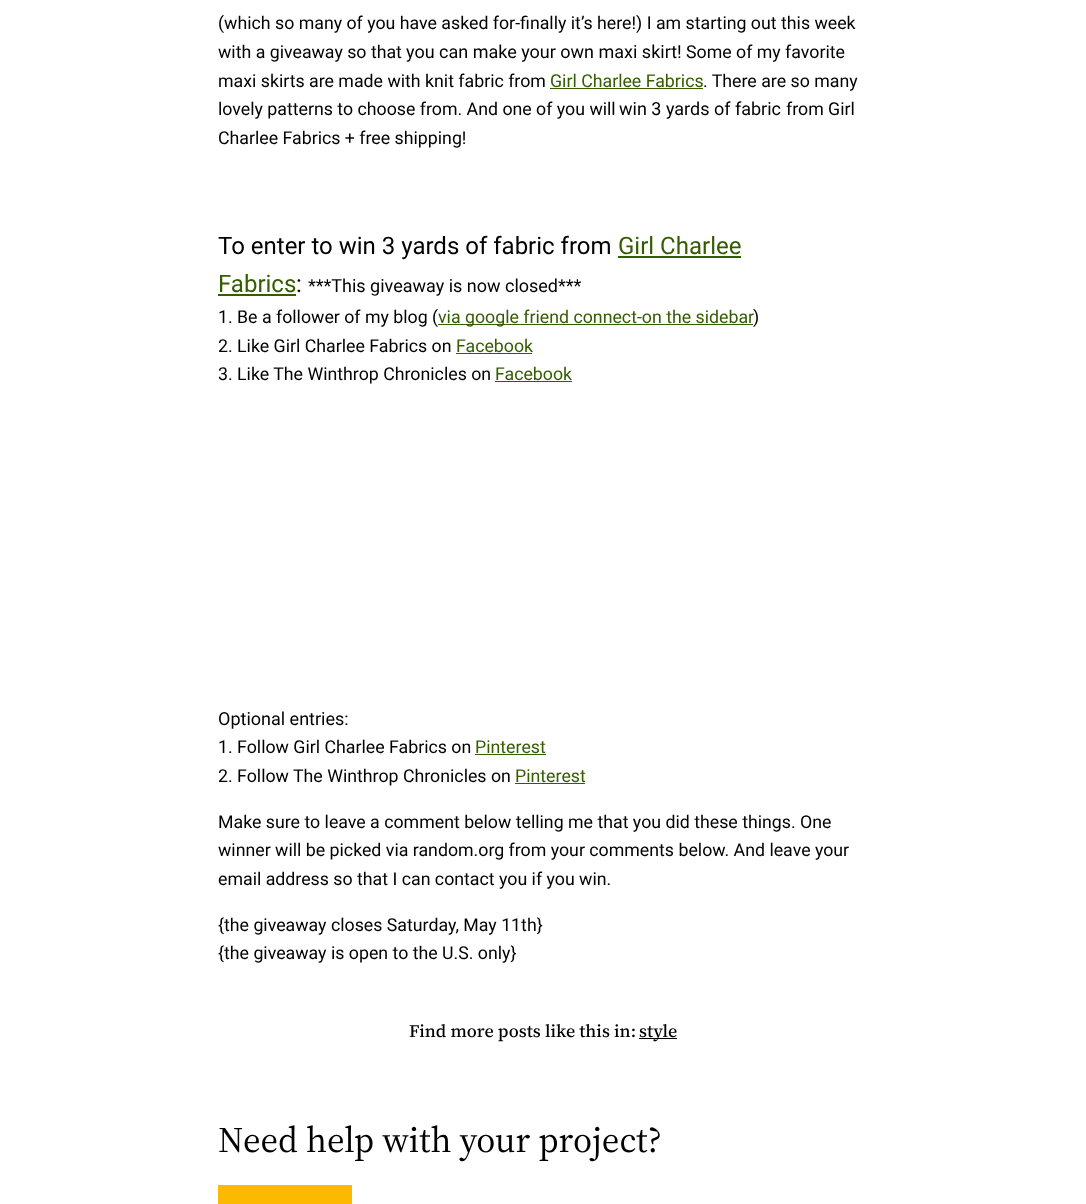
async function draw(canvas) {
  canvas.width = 1086
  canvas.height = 1204
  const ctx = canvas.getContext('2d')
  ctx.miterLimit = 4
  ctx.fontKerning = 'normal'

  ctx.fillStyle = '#fff'
  ctx.fillRect(0, 0, 1086, 1204)
  ctx.font = '17.75px Roboto'
  ctx.fillStyle = '#000'
  ctx.fillText('(which so many of you have asked for-finally it’s here!) I am starting out this week', 218, 29)
  ctx.fillText('with a giveaway so that', 218, 58)
  ctx.font = '18px Roboto'
  ctx.fillText('you can make your own maxi skirt!', 406, 58)
  ctx.font = '17.75px Roboto'
  ctx.fillText('Some of my favorite', 686, 58)
  ctx.fillText('maxi skirts are made with knit fabric from', 218, 87)
  ctx.fillStyle = '#345c00'
  ctx.fillText('Girl Charlee Fabrics', 550, 87)
  ctx.fillRect(550, 88, 153, 1)
  ctx.fillStyle = '#000'
  ctx.fillText('. There are so many', 703, 87)
  ctx.fillText('lovely patterns to choose from. And one of you will', 218, 115)
  ctx.font = '18px Roboto'
  ctx.fillText('win 3 yards of fabric', 619, 115)
  ctx.font = '17.75px Roboto'
  ctx.fillText('from Girl', 786, 115)
  ctx.fillText('Charlee Fabrics + free shipping!', 218, 144)
  ctx.font = '24px Roboto'
  ctx.fillText('To enter to win 3 yards of fabric from', 218, 254)
  ctx.fillStyle = '#345c00'
  ctx.fillText('Girl Charlee', 618, 254)
  ctx.fillRect(618, 256, 123, 2)
  ctx.fillText('Fabrics', 218, 292)
  ctx.fillStyle = '#000'
  ctx.fillText(':', 296, 292)
  ctx.fillStyle = '#345c00'
  ctx.fillRect(218, 294, 78, 2)
  ctx.font = '18px Roboto'
  ctx.fillStyle = '#000'
  ctx.fillText('***This giveaway is now closed***', 308, 292)
  ctx.font = '17.75px Roboto'
  ctx.fillText('1. Be a follower of my blog (', 218, 323)
  ctx.fillStyle = '#345c00'
  ctx.fillRect(438, 324, 315, 1)
  ctx.fillText('via google friend connect-on the sidebar', 438, 323)
  ctx.fillStyle = '#000'
  ctx.fillText(')', 753, 323)
  ctx.fillText('2. Like Girl Charlee Fabrics on', 218, 352)
  ctx.fillStyle = '#345c00'
  ctx.fillText('Facebook', 456, 352)
  ctx.fillRect(456, 353, 76, 1)
  ctx.fillStyle = '#000'
  ctx.fillText('3. Like The Winthrop Chronicles on', 218, 380)
  ctx.fillStyle = '#345c00'
  ctx.fillText('Facebook', 495, 380)
  ctx.fillRect(495, 381, 77, 1)
  ctx.font = '18px Roboto'
  ctx.fillStyle = '#000'
  ctx.fillText('Optional entries:', 218, 725)
  ctx.font = '17.75px Roboto'
  ctx.fillText('1. Follow Girl Charlee Fabrics on', 218, 753)
  ctx.fillStyle = '#345c00'
  ctx.fillText('Pinterest', 475, 753)
  ctx.fillRect(475, 754, 71, 1)
  ctx.fillStyle = '#000'
  ctx.fillText('2. Follow The Winthrop Chronicles on', 218, 782)
  ctx.fillStyle = '#345c00'
  ctx.fillText('Pinterest', 515, 782)
  ctx.fillRect(515, 783, 70, 1)
  ctx.fillStyle = '#000'
  ctx.fillText('Make sure to leave a comment below telling me that you did these things. One', 218, 828)
  ctx.fillText('winner will be picked via random.org from your comments below. And leave your', 218, 856)
  ctx.fillText('email address so that I can contact you if you win.', 218, 885)
  ctx.fillText('{the giveaway closes Saturday, May 11th}', 218, 931)
  ctx.fillText('{the giveaway is open to the U.S. only}', 218, 959)
  ctx.font = '500 17.75px "Source Serif 4"'
  ctx.fillText('Find more posts like this in:', 409, 1037)
  ctx.fillRect(639, 1038, 38, 1)
  ctx.fillText('style', 639, 1037)
  ctx.font = '36px "Source Serif 4"'
  ctx.fillText('Need help with your project?', 218, 1152)
  ctx.fillStyle = '#fcb900'
  ctx.fillRect(218, 1185, 134, 19)
}

draw(document.querySelector('canvas'))
